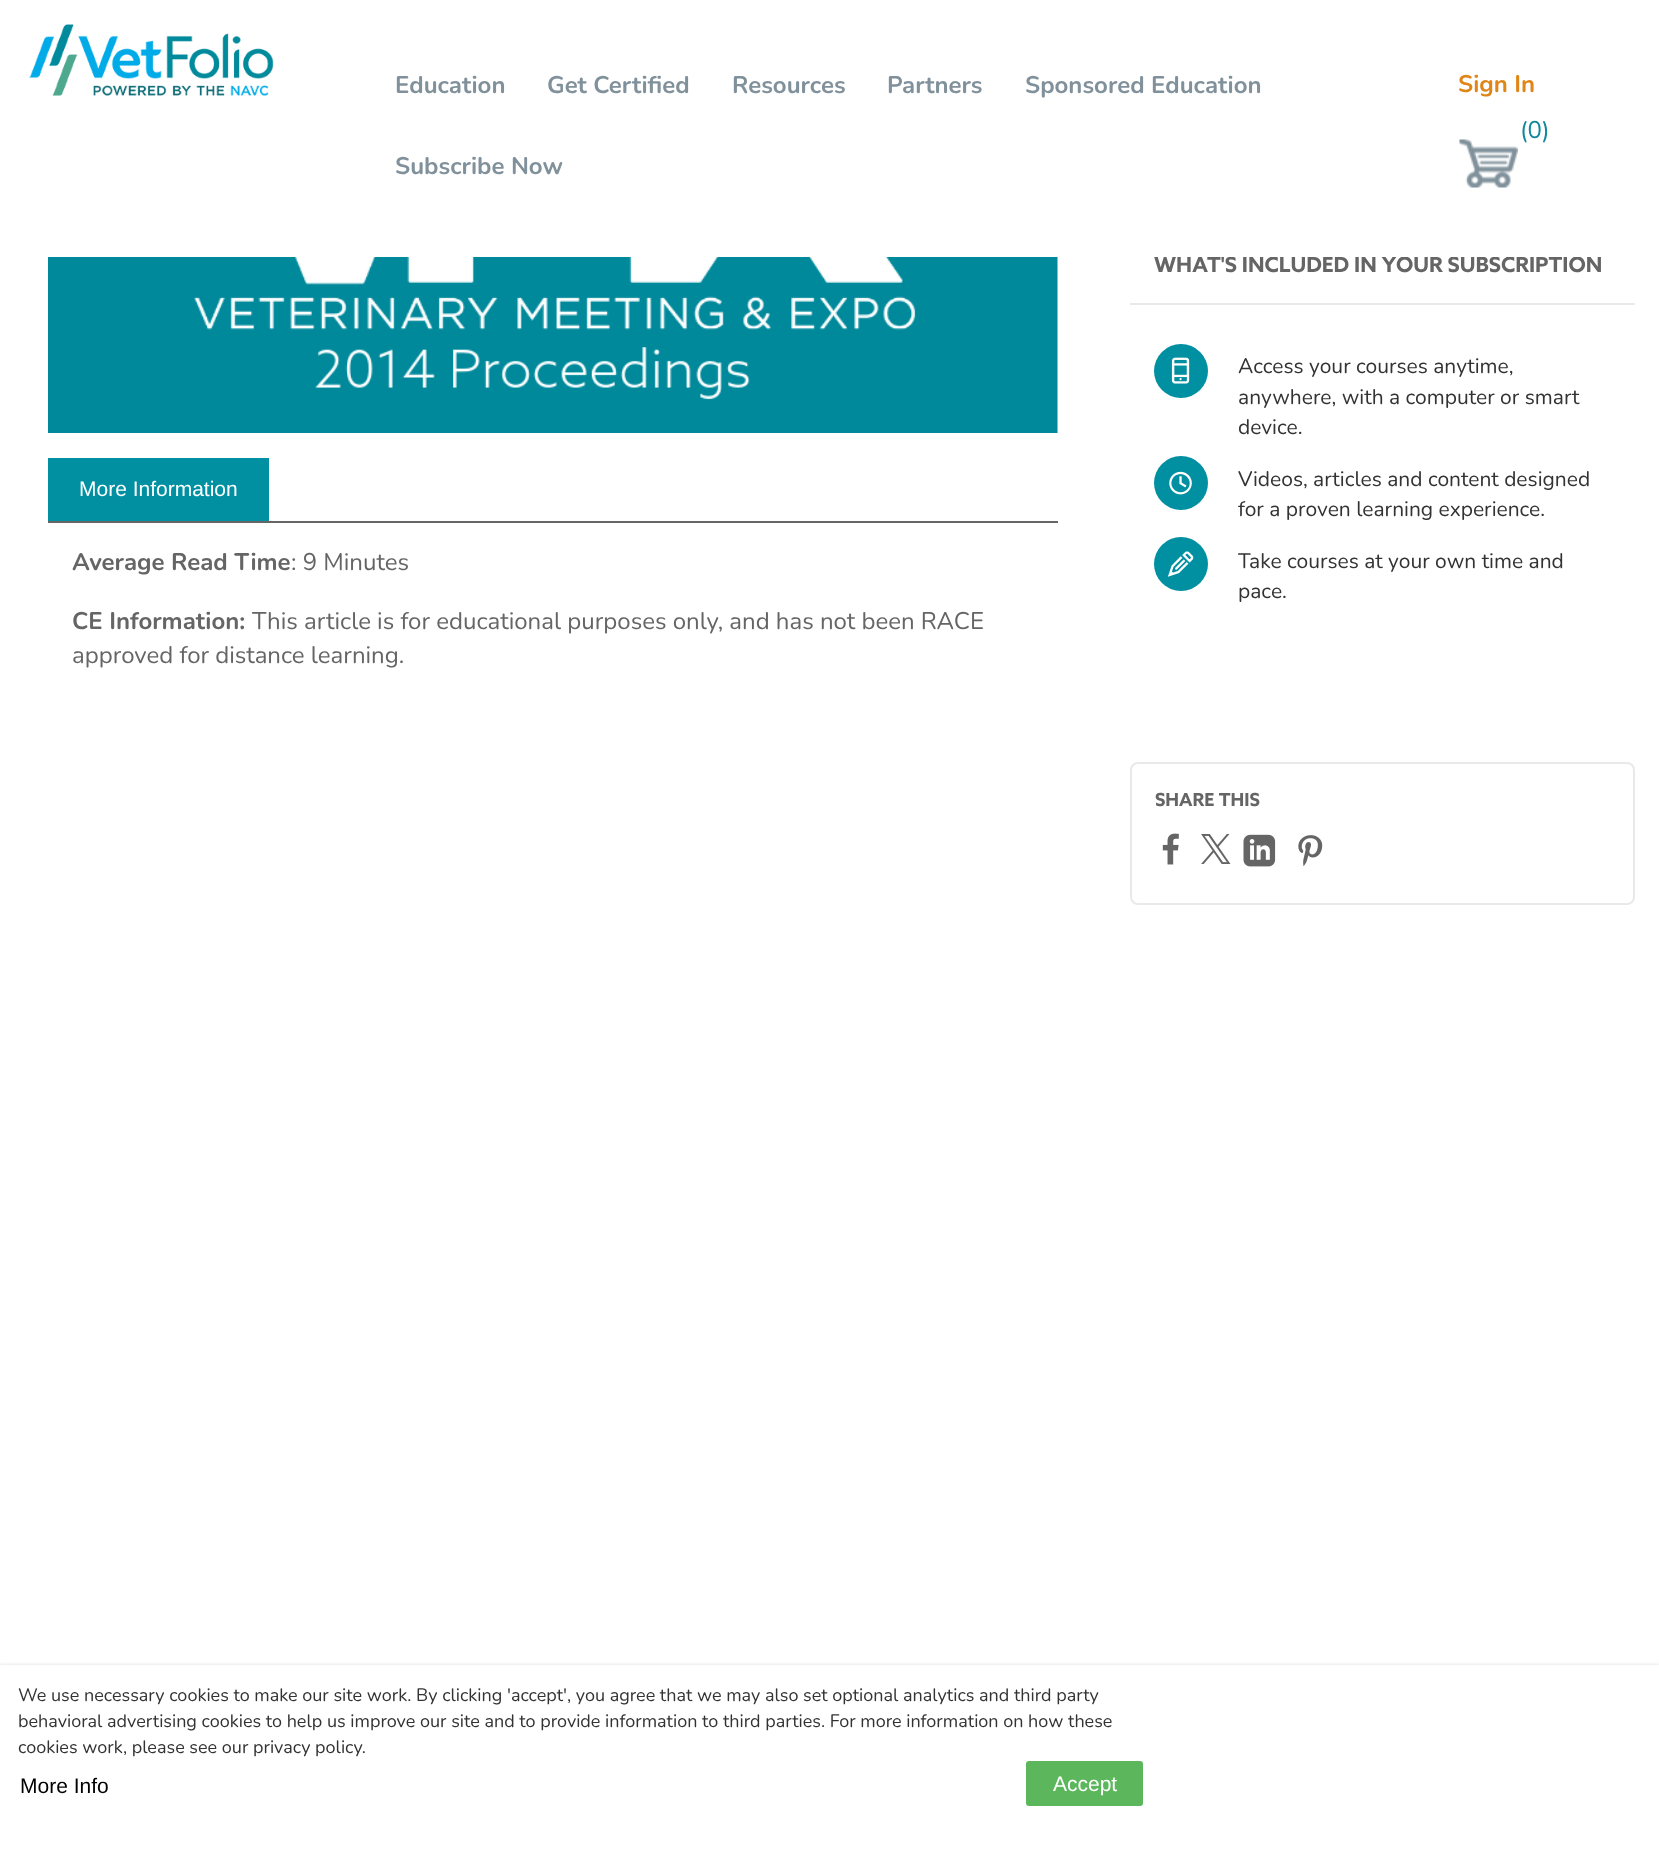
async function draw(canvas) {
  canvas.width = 1659
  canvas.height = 1871
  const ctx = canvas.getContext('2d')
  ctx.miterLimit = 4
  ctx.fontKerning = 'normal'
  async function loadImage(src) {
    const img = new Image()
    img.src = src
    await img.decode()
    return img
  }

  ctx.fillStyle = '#fff'
  ctx.fillRect(0, 0, 1659, 1871)
  ctx.font = 'bold 21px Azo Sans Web'
  ctx.fillStyle = '#656565'
  ctx.fillText('WHAT\'S INCLUDED IN YOUR SUBSCRIPTION', 1154, 272)
  ctx.fillStyle = '#fff'
  ctx.fillRect(1154, 256, 447, 1)
  ctx.drawImage(await loadImage('image0.png'), 29, 24, 245, 72)
  ctx.font = 'bold 24px Nunito'
  ctx.fillStyle = '#80919b'
  ctx.fillText('Education', 395, 93)
  ctx.fillText('Get Certified', 547, 93)
  ctx.fillText('Resources', 732, 93)
  ctx.fillText('Partners', 887, 93)
  ctx.fillText('Sponsored Education', 1025, 93)
  ctx.fillText('Subscribe Now', 395, 174)
  ctx.fillStyle = '#e08619'
  ctx.fillText('Sign In', 1458, 92)
  ctx.font = '24px Nunito'
  ctx.fillStyle = '#10879a'
  ctx.fillText('(0)', 1520, 138)
  ctx.drawImage(await loadImage('image1.png'), 1459, 139, 59, 49)
  ctx.drawImage(await loadImage('image2.png'), 48, 257, 1010, 176)
  ctx.fillStyle = '#656565'
  ctx.fillRect(48, 521, 1010, 2)
  ctx.fillStyle = '#0090a2'
  ctx.fillRect(48, 458, 221, 63)
  ctx.font = '21px Liberation Sans'
  ctx.fillStyle = '#fff'
  ctx.fillText('More Information', 79, 496)
  ctx.font = 'bold 24px Nunito'
  ctx.fillStyle = '#656565'
  ctx.fillText('Average Read Time', 72, 570)
  ctx.font = '24px Nunito'
  ctx.fillText(': 9 Minutes', 291, 570)
  ctx.font = 'bold 24px Nunito'
  ctx.fillText('CE Information:', 72, 629)
  ctx.font = '24px Nunito'
  ctx.fillText('This article is for educational purposes only, and has not been RACE', 252, 629)
  ctx.fillText('approved for distance learning.', 72, 663)
  ctx.fillStyle = '#e9e9e9'
  ctx.fillRect(1130, 303, 505, 2)
  ctx.fillStyle = '#0090a2'
  ctx.beginPath()
  ctx.arc(1181, 371, 27, 0, 2 * Math.PI)
  ctx.fill()
  ctx.drawImage(await loadImage('image3.png'), 1171, 357, 19, 27)
  ctx.font = '21px Nunito'
  ctx.fillStyle = '#333'
  ctx.fillText('Access your courses anytime,', 1238, 373)
  ctx.fillText('anywhere, with a computer or smart', 1238, 404)
  ctx.fillText('device.', 1238, 434)
  ctx.fillStyle = '#0090a2'
  ctx.beginPath()
  ctx.arc(1181, 483, 27, 0, 2 * Math.PI)
  ctx.fill()
  ctx.drawImage(await loadImage('image4.png'), 1169, 471, 23, 24)
  ctx.fillStyle = '#333'
  ctx.fillText('Videos, articles and content designed', 1238, 486)
  ctx.fillText('for a proven learning experience.', 1238, 516)
  ctx.fillStyle = '#0090a2'
  ctx.beginPath()
  ctx.arc(1181, 564, 27, 0, 2 * Math.PI)
  ctx.fill()
  ctx.drawImage(await loadImage('image5.png'), 1167, 551, 27, 26)
  ctx.fillStyle = '#333'
  ctx.fillText('Take courses at your own time and', 1238, 568)
  ctx.fillText('pace.', 1238, 598)
  ctx.beginPath()
  ctx.roundRect(1131, 763, 503, 141, 7)
  ctx.strokeStyle = '#e9e9e9'
  ctx.lineWidth = 2
  ctx.stroke()
  ctx.font = 'bold 18px Azo Sans Web'
  ctx.fillStyle = '#656565'
  ctx.fillText('SHARE THIS', 1155, 806)
  ctx.drawImage(await loadImage('image6.png'), 1162, 833, 17, 32)
  ctx.drawImage(await loadImage('image7.png'), 1201, 834, 30, 30)
  ctx.drawImage(await loadImage('image8.png'), 1243, 834, 33, 33)
  ctx.drawImage(await loadImage('image9.png'), 1298, 835, 25, 31)
  ctx.fillStyle = '#e9e9e9'
  ctx.filter = 'blur(1.5px)'
  ctx.beginPath()
  ctx.rect(0, 1664, 1659, 207)
  ctx.fill()
  ctx.filter = 'none'
  ctx.fillStyle = '#fff'
  ctx.fillRect(0, 1665, 1659, 206)
  ctx.font = '18px Nunito'
  ctx.fillStyle = '#333'
  ctx.fillText('We use necessary cookies to make our site work. By clicking \'accept\', you agree that we may also set optional analytics and third party', 18, 1701)
  ctx.fillText('behavioral advertising cookies to help us improve our site and to provide information to third parties. For more information on how these', 18, 1727)
  ctx.fillText('cookies work, please see our privacy policy.', 18, 1753)
  ctx.font = '21px Liberation Sans'
  ctx.fillStyle = '#000'
  ctx.fillText('More Info', 20, 1793)
  ctx.fillStyle = '#5bb65c'
  ctx.beginPath()
  ctx.roundRect(1026, 1761, 117, 45, 3)
  ctx.fill()
  ctx.fillStyle = '#fff'
  ctx.fillText('Accept', 1053, 1791)
}

draw(document.querySelector('canvas'))
